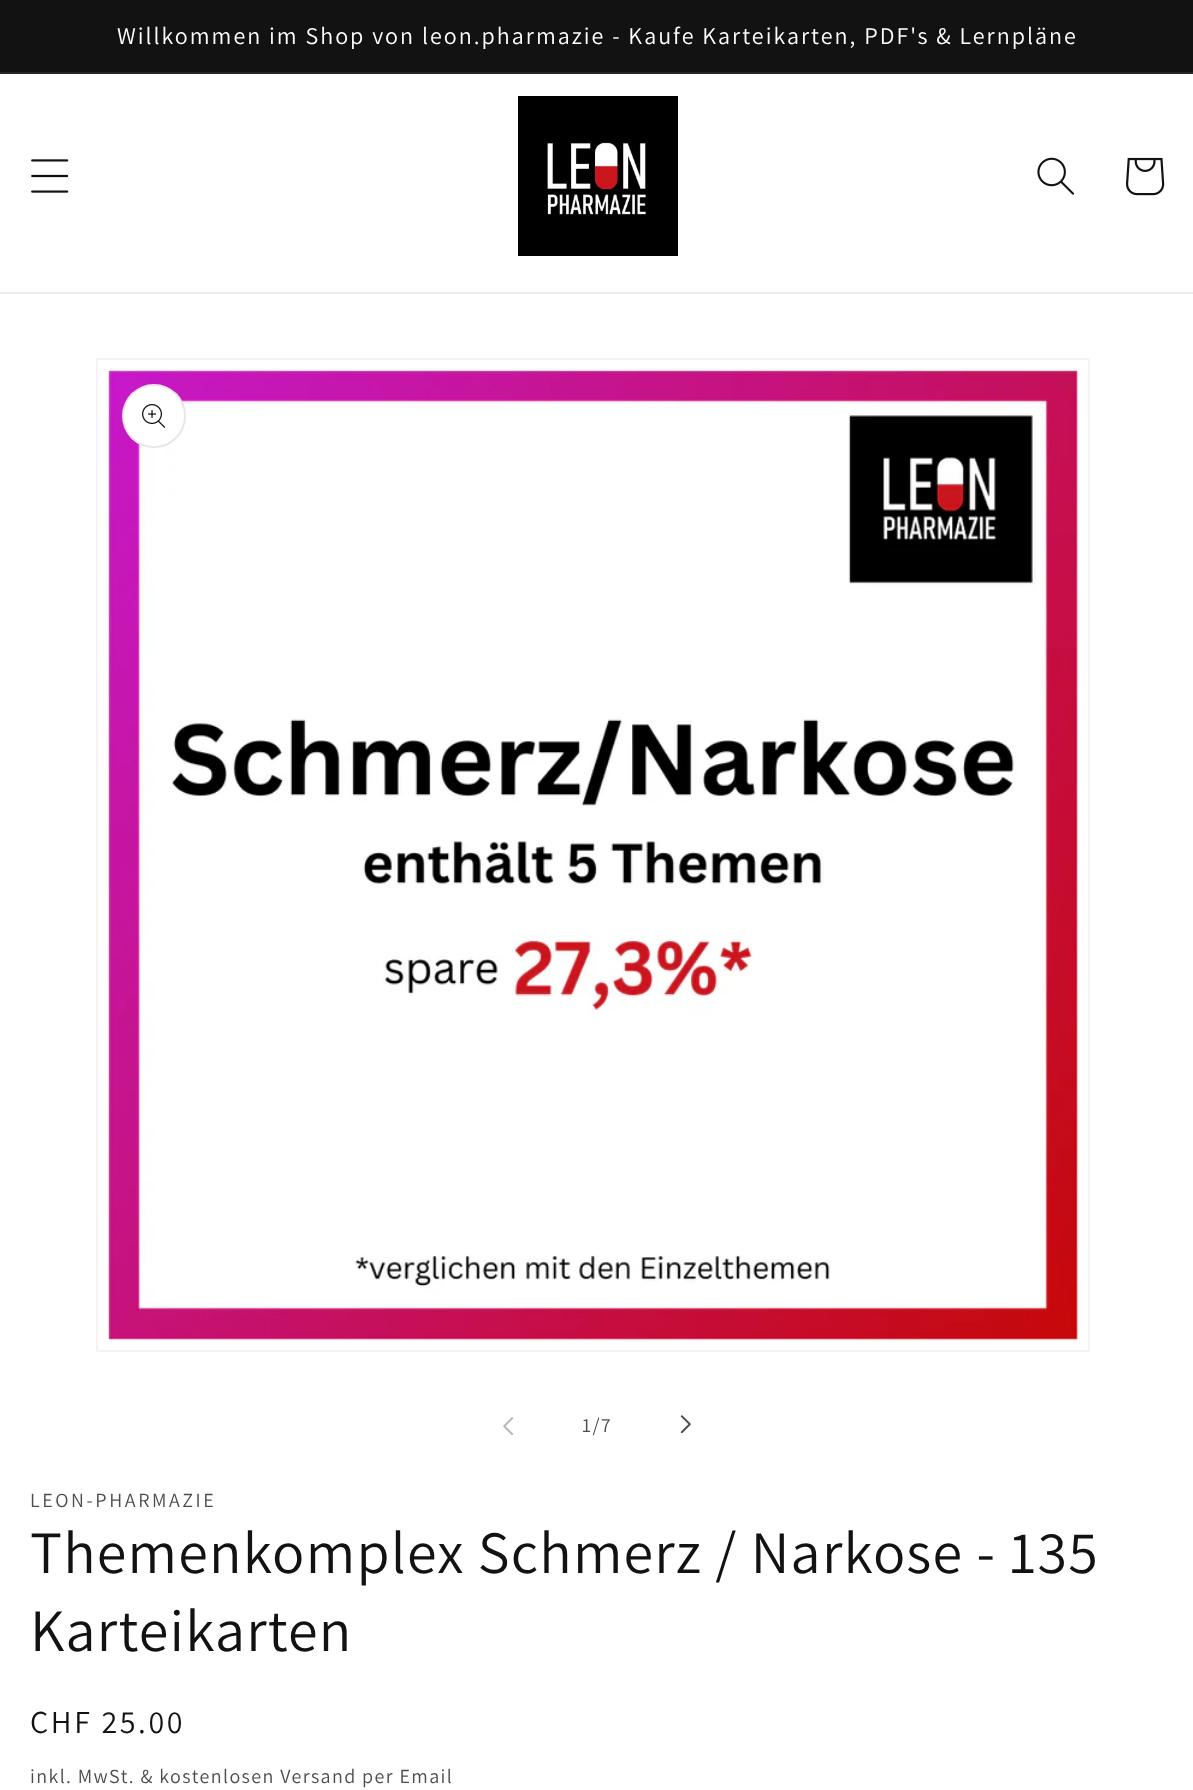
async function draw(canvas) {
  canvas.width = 1193
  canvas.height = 1790
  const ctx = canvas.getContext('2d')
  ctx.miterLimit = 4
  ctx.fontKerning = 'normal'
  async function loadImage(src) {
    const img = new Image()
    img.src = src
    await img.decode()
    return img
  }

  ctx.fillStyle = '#fff'
  ctx.fillRect(0, 0, 1193, 1790)
  ctx.fillStyle = '#121212'
  ctx.fillRect(0, 0, 1193, 72)
  ctx.fillStyle = '#252525'
  ctx.fillRect(0, 72, 1193, 2)
  ctx.letterSpacing = '2px'
  ctx.font = '24px Assistant'
  ctx.fillStyle = '#fff'
  ctx.fillText('Willkommen im Shop von leon.pharmazie - Kaufe Karteikarten, PDF\'s & Lernpläne', 117, 44)
  ctx.fillStyle = '#ececec'
  ctx.fillRect(0, 292, 1193, 2)
  ctx.drawImage(await loadImage('image0.png'), 31, 159, 38, 34)
  ctx.drawImage(await loadImage('image1.png'), 518, 96, 160, 160)
  ctx.drawImage(await loadImage('image2.png'), 1037, 157, 37, 38)
  ctx.drawImage(await loadImage('image3.png'), 1126, 157, 39, 39)
  ctx.strokeStyle = '#f3f3f3'
  ctx.lineWidth = 2
  ctx.strokeRect(97, 359, 992, 992)
  ctx.drawImage(await loadImage('image4.png'), 106, 368, 974, 974)
  ctx.fillStyle = '#fff'
  ctx.beginPath()
  ctx.arc(154, 416, 32, 0, 2 * Math.PI)
  ctx.fill()
  ctx.beginPath()
  ctx.arc(154, 416, 31, 0, 2 * Math.PI)
  ctx.strokeStyle = '#1212121a'
  ctx.stroke()
  ctx.drawImage(await loadImage('image5.png'), 142, 404, 24, 24)
  ctx.drawImage(await loadImage('image6.png'), 503, 1417, 11, 18)
  ctx.letterSpacing = '1.4px'
  ctx.font = '20px Assistant'
  ctx.fillStyle = '#4d4d4d'
  ctx.fillText('1/7', 582, 1432)
  ctx.drawImage(await loadImage('image7.png'), 680, 1415, 11, 19)
  ctx.letterSpacing = '2.6px'
  ctx.fillText('LEON-PHARMAZIE', 30, 1507)
  ctx.letterSpacing = '1.2px'
  ctx.font = '60px Assistant'
  ctx.fillStyle = '#121212'
  ctx.fillText('Themenkomplex Schmerz / Narkose - 135', 30, 1573)
  ctx.fillText('Karteikarten', 30, 1651)
  ctx.letterSpacing = '2.6px'
  ctx.font = '32px Assistant'
  ctx.fillText('CHF 25.00', 30, 1733)
  ctx.letterSpacing = '1.4px'
  ctx.font = '20px Assistant'
  ctx.fillStyle = '#4d4d4d'
  ctx.fillText('inkl. MwSt. & kostenlosen Versand per Email', 30, 1783)
}

draw(document.querySelector('canvas'))
